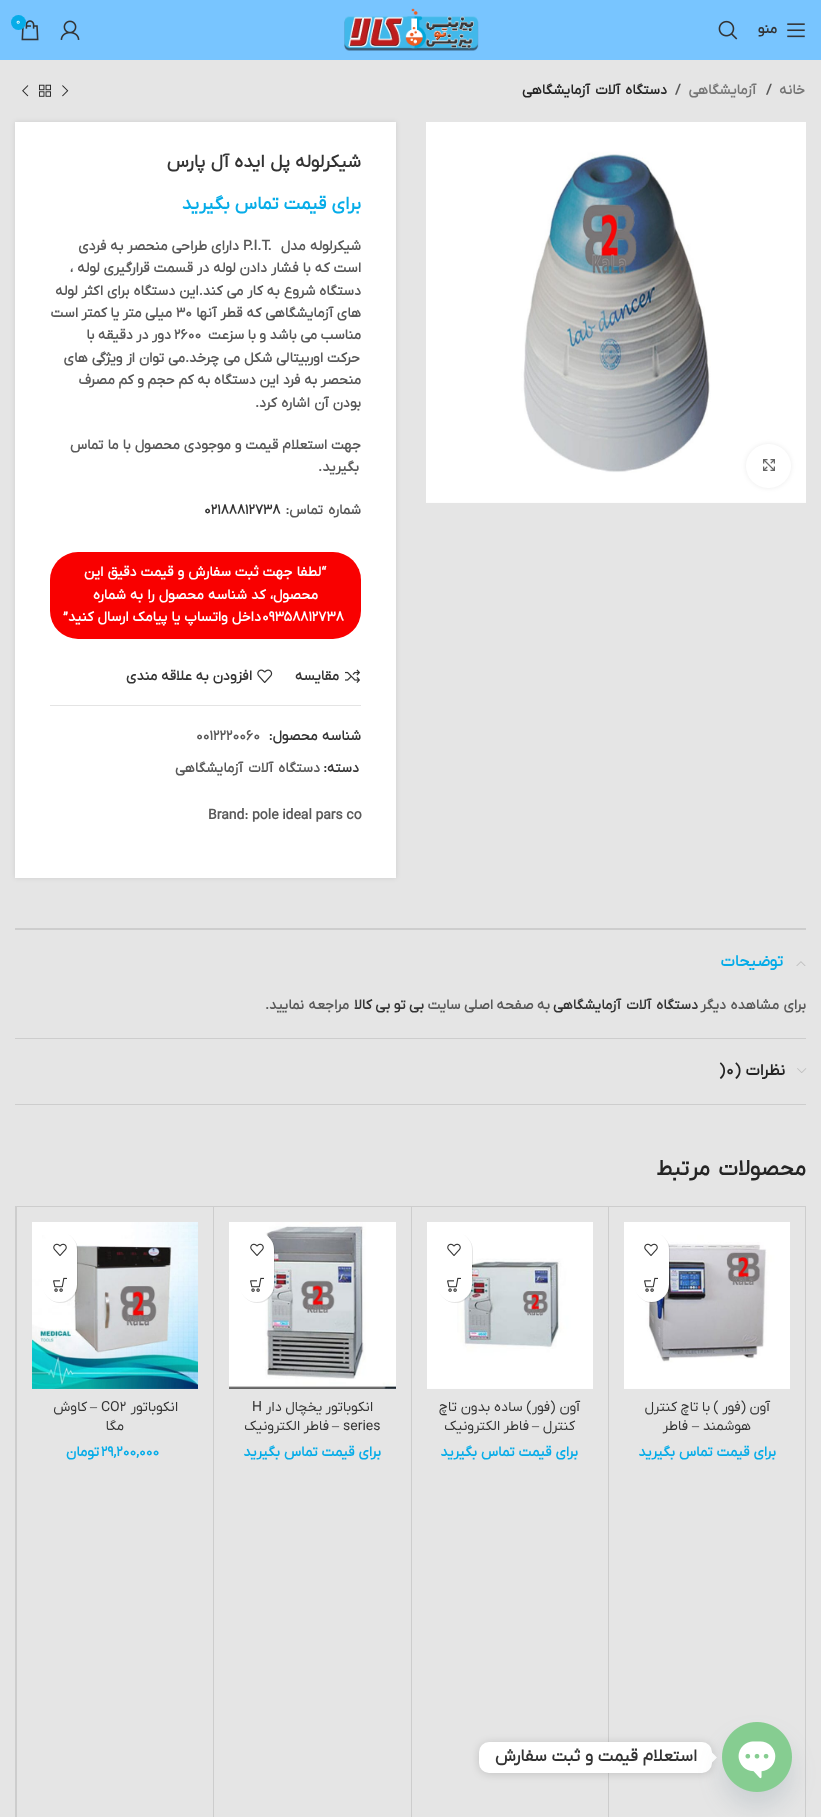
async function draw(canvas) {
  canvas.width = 821
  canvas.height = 1817
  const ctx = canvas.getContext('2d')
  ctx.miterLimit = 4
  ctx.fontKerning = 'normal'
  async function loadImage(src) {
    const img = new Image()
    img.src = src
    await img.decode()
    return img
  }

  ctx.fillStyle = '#e5e5e5'
  ctx.fillRect(0, 0, 821, 1817)
  ctx.fillStyle = '#78c5ff'
  ctx.fillRect(0, 0, 821, 60)
  ctx.drawImage(await loadImage('image0.png'), 344, 8, 135, 43)
  ctx.drawImage(await loadImage('image1.png'), 60, 20, 20, 20)
  ctx.drawImage(await loadImage('image2.png'), 21, 20, 18, 21)
  ctx.fillStyle = '#06ace8'
  ctx.beginPath()
  ctx.arc(18.5, 22.5, 7.5, 0, 2 * Math.PI)
  ctx.fill()
  ctx.font = '9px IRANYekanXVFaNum'
  ctx.fillStyle = '#fff'
  ctx.fillText('0', 16, 24)
  ctx.drawImage(await loadImage('image3.png'), 787, 23, 18, 15)
  ctx.direction = 'rtl'
  ctx.font = 'bold 14px IRANYekanXVFaNum'
  ctx.fillStyle = '#333'
  ctx.fillText('منو', 777, 33)
  ctx.drawImage(await loadImage('image4.png'), 718, 20, 20, 20)
  ctx.fillStyle = '#767676'
  ctx.fillText('خانه', 805, 94)
  ctx.direction = 'ltr'
  ctx.fillStyle = '#595959'
  ctx.fillText('/', 766, 94)
  ctx.direction = 'rtl'
  ctx.fillStyle = '#767676'
  ctx.fillText('آزمایشگاهی', 756, 94)
  ctx.direction = 'ltr'
  ctx.fillStyle = '#595959'
  ctx.fillText('/', 675, 94)
  ctx.wordSpacing = '2px'
  ctx.direction = 'rtl'
  ctx.fillStyle = '#242424'
  ctx.fillText('دستگاه آلات آزمایشگاهی', 667, 94)
  ctx.drawImage(await loadImage('image5.png'), 62, 85, 7, 12)
  ctx.drawImage(await loadImage('image6.png'), 39, 84, 12, 13)
  ctx.drawImage(await loadImage('image7.png'), 22, 85, 7, 12)
  ctx.drawImage(await loadImage('image8.png'), 426, 122, 380, 381)
  ctx.fillStyle = '#00000014'
  ctx.filter = 'blur(2.5px)'
  ctx.beginPath()
  ctx.roundRect(746, 444, 45, 44, 22)
  ctx.fill()
  ctx.filter = 'none'
  ctx.fillStyle = '#fff'
  ctx.beginPath()
  ctx.roundRect(746, 444, 45, 44, 22)
  ctx.fill()
  ctx.drawImage(await loadImage('image9.png'), 763, 459, 12, 12)
  ctx.fillStyle = '#0000001a'
  ctx.filter = 'blur(2.5px)'
  ctx.beginPath()
  ctx.rect(15, 122, 381, 756)
  ctx.fill()
  ctx.filter = 'none'
  ctx.fillStyle = '#fff'
  ctx.fillRect(15, 122, 381, 756)
  ctx.wordSpacing = '1px'
  ctx.font = 'bold 18px IRANYekanXVFaNum'
  ctx.fillStyle = '#333'
  ctx.fillText('شیکر‌لوله پل ایده آل پارس', 361, 167)
  ctx.wordSpacing = '0.5px'
  ctx.font = 'bold 18.25px IRANYekanXVFaNum'
  ctx.fillStyle = '#06ace8'
  ctx.fillText('برای قیمت تماس بگیرید', 361, 209)
  ctx.wordSpacing = '1px'
  ctx.font = 'bold 14px IRANYekanXVFaNum'
  ctx.fillStyle = '#595959'
  ctx.fillText('شیکرلوله مدل  .', 361, 250)
  ctx.wordSpacing = '0px'
  ctx.direction = 'ltr'
  ctx.fillText('P.I.T', 243, 250)
  ctx.wordSpacing = '0.5px'
  ctx.direction = 'rtl'
  ctx.fillText('دارای طراحی منحصر به فردی', 239, 250)
  ctx.fillText('است که با فشار دادن لوله در قسمت قرارگیری لوله ،', 361, 272)
  ctx.fillText('دستگاه شروع به کار می کند.این دستگاه برای اکثر لوله', 361, 295)
  ctx.fillText('های آزمایشگاهی که قطر آنها', 361, 317)
  ctx.wordSpacing = '0px'
  ctx.direction = 'ltr'
  ctx.fillText('30', 176, 317)
  ctx.direction = 'rtl'
  ctx.fillText('میلی متر یا کمتر است', 172, 317)
  ctx.fillText('مناسب می باشد و با سزعت', 361, 339)
  ctx.direction = 'ltr'
  ctx.fillText('2600', 174, 339)
  ctx.direction = 'rtl'
  ctx.fillText('دور در دقیقه با', 171, 339)
  ctx.wordSpacing = '0.5px'
  ctx.fillText('حرکت اوربیتالی شکل می چرخد.می توان از ویژگی های', 360, 362)
  ctx.wordSpacing = '0.25px'
  ctx.fillText('منحصر به فرد این دستگاه به کم حجم و کم مصرف', 361, 384)
  ctx.wordSpacing = '1px'
  ctx.fillText('بودن آن اشاره کرد.', 361, 407)
  ctx.wordSpacing = '0.5px'
  ctx.fillText('جهت استعلام قیمت و موجودی محصول با ما تماس', 361, 449)
  ctx.wordSpacing = '0px'
  ctx.fillText('بگیرید.', 359, 471)
  ctx.wordSpacing = '2px'
  ctx.fillText('شماره تماس:', 361, 514)
  ctx.wordSpacing = '0px'
  ctx.direction = 'ltr'
  ctx.fillStyle = '#333'
  ctx.fillText('02188812738', 204, 514)
  ctx.fillStyle = '#f90000'
  ctx.beginPath()
  ctx.roundRect(50, 552, 311, 87, 28)
  ctx.fill()
  ctx.wordSpacing = '0.5px'
  ctx.direction = 'rtl'
  ctx.fillStyle = '#fff'
  ctx.fillText('“لطفا جهت ثبت سفارش و قیمت دقیق این', 326, 576)
  ctx.wordSpacing = '0.75px'
  ctx.fillText('محصول، کد شناسه محصول را به شماره', 318, 599)
  ctx.wordSpacing = '0px'
  ctx.direction = 'ltr'
  ctx.fillText('09358812738', 262, 621)
  ctx.wordSpacing = '0.5px'
  ctx.direction = 'rtl'
  ctx.fillText('داخل واتساپ یا پیامک ارسال کنید”', 261, 621)
  ctx.drawImage(await loadImage('image10.png'), 345, 669, 15, 14)
  ctx.wordSpacing = '0px'
  ctx.fillStyle = '#333'
  ctx.fillText('مقایسه', 339, 680)
  ctx.drawImage(await loadImage('image11.png'), 257, 669, 16, 14)
  ctx.wordSpacing = '0.5px'
  ctx.fillText('افزودن به علاقه مندی', 252, 680)
  ctx.fillStyle = '#e4e4e4'
  ctx.fillRect(50, 705, 311, 1)
  ctx.wordSpacing = '1px'
  ctx.fillStyle = '#333'
  ctx.fillText('شناسه محصول:', 361, 740)
  ctx.wordSpacing = '0px'
  ctx.direction = 'ltr'
  ctx.fillStyle = '#595959'
  ctx.fillText('0012220060', 196, 740)
  ctx.direction = 'rtl'
  ctx.fillStyle = '#333'
  ctx.fillText('دسته:', 359, 772)
  ctx.wordSpacing = '2px'
  ctx.fillStyle = '#595959'
  ctx.fillText('دستگاه آلات آزمایشگاهی', 320, 772)
  ctx.wordSpacing = '0px'
  ctx.direction = 'ltr'
  ctx.fillText('pole ideal pars co', 252, 819)
  ctx.fillText('Brand:', 208, 819)
  ctx.fillStyle = '#cdcdcd'
  ctx.fillRect(15, 928, 791, 2)
  ctx.fillRect(15, 1038, 791, 1)
  ctx.drawImage(await loadImage('image12.png'), 796, 961, 10, 5)
  ctx.direction = 'rtl'
  ctx.font = 'bold 16px IRANYekanXVFaNum'
  ctx.fillStyle = '#06ace8'
  ctx.fillText('توضیحات', 783, 966)
  ctx.wordSpacing = '1px'
  ctx.font = 'bold 14px IRANYekanXVFaNum'
  ctx.fillStyle = '#595959'
  ctx.fillText('برای مشاهده دیگر', 806, 1009)
  ctx.wordSpacing = '2px'
  ctx.fillStyle = '#333'
  ctx.fillText('دستگاه آلات آزمایشگاهی', 698, 1009)
  ctx.wordSpacing = '0px'
  ctx.fillStyle = '#595959'
  ctx.fillText('به صفحه اصلی سایت', 550, 1009)
  ctx.fillStyle = '#333'
  ctx.fillText('بی تو بی کالا', 424, 1009)
  ctx.wordSpacing = '1px'
  ctx.fillStyle = '#595959'
  ctx.fillText('مراجعه نمایید.', 349, 1009)
  ctx.fillStyle = '#cdcdcd'
  ctx.fillRect(15, 1104, 791, 1)
  ctx.drawImage(await loadImage('image13.png'), 797, 1068, 10, 5)
  ctx.font = 'bold 16px IRANYekanXVFaNum'
  ctx.fillStyle = '#242424'
  ctx.fillText('نظرات (', 785, 1075)
  ctx.wordSpacing = '0px'
  ctx.direction = 'ltr'
  ctx.fillText('0', 726, 1075)
  ctx.fillText(')', 719, 1075)
  ctx.wordSpacing = '3px'
  ctx.direction = 'rtl'
  ctx.font = 'bold 22px IRANYekanXVFaNum'
  ctx.fillText('محصولات مرتبط', 806, 1175)
  ctx.strokeStyle = '#cdcdcd'
  ctx.strokeRect(15.5, 1206.5, 790, 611)
  ctx.fillStyle = '#cdcdcd'
  ctx.fillRect(608, 1207, 1, 610)
  ctx.drawImage(await loadImage('image14.png'), 624, 1222, 166, 167)
  ctx.fillStyle = '#0000001a'
  ctx.filter = 'blur(0.5px)'
  ctx.beginPath()
  ctx.roundRect(635, 1233, 35, 70, 17.5)
  ctx.fill()
  ctx.filter = 'none'
  ctx.fillStyle = '#fff'
  ctx.beginPath()
  ctx.roundRect(634, 1232, 35, 70, 17.5)
  ctx.fill()
  ctx.drawImage(await loadImage('image15.png'), 644, 1243, 14, 13)
  ctx.drawImage(await loadImage('image16.png'), 644, 1277, 14, 15)
  ctx.wordSpacing = '0px'
  ctx.font = '14px IRANYekanXVFaNum'
  ctx.fillStyle = '#333'
  ctx.fillText('آون (فور ) با تاچ کنترل', 770, 1411)
  ctx.fillText('هوشمند', 751, 1430)
  ctx.font = '14px Liberation Serif'
  ctx.fillText('–', 699, 1430)
  ctx.font = '14px IRANYekanXVFaNum'
  ctx.fillText('فاطر', 688, 1430)
  ctx.wordSpacing = '0.5px'
  ctx.font = 'bold 14px IRANYekanXVFaNum'
  ctx.fillStyle = '#06ace8'
  ctx.fillText('برای قیمت تماس بگیرید', 776, 1456)
  ctx.fillStyle = '#cdcdcd'
  ctx.fillRect(411, 1207, 1, 610)
  ctx.drawImage(await loadImage('image17.png'), 427, 1222, 166, 167)
  ctx.fillStyle = '#0000001a'
  ctx.filter = 'blur(0.5px)'
  ctx.beginPath()
  ctx.roundRect(438, 1233, 35, 70, 17.5)
  ctx.fill()
  ctx.filter = 'none'
  ctx.fillStyle = '#fff'
  ctx.beginPath()
  ctx.roundRect(437, 1232, 35, 70, 17.5)
  ctx.fill()
  ctx.drawImage(await loadImage('image15.png'), 447, 1243, 14, 13)
  ctx.drawImage(await loadImage('image16.png'), 447, 1277, 14, 15)
  ctx.font = '14px IRANYekanXVFaNum'
  ctx.fillStyle = '#333'
  ctx.fillText('آون (فور) ساده بدون تاچ', 580, 1411)
  ctx.wordSpacing = '0px'
  ctx.fillText('کنترل', 575, 1430)
  ctx.font = '14px Liberation Serif'
  ctx.fillText('–', 539, 1430)
  ctx.font = '14px IRANYekanXVFaNum'
  ctx.fillText('فاطر الکترونیک', 529, 1430)
  ctx.wordSpacing = '0.5px'
  ctx.font = 'bold 14px IRANYekanXVFaNum'
  ctx.fillStyle = '#06ace8'
  ctx.fillText('برای قیمت تماس بگیرید', 578, 1456)
  ctx.fillStyle = '#cdcdcd'
  ctx.fillRect(213, 1207, 1, 610)
  ctx.drawImage(await loadImage('image18.png'), 229, 1222, 167, 167)
  ctx.fillStyle = '#0000001a'
  ctx.filter = 'blur(0.5px)'
  ctx.beginPath()
  ctx.roundRect(240, 1233, 35, 70, 17.5)
  ctx.fill()
  ctx.filter = 'none'
  ctx.fillStyle = '#fff'
  ctx.beginPath()
  ctx.roundRect(239, 1232, 35, 70, 17.5)
  ctx.fill()
  ctx.drawImage(await loadImage('image15.png'), 250, 1243, 14, 13)
  ctx.drawImage(await loadImage('image16.png'), 250, 1277, 14, 15)
  ctx.wordSpacing = '0px'
  ctx.font = '14px IRANYekanXVFaNum'
  ctx.fillStyle = '#333'
  ctx.fillText('انکوباتور یخچال دار', 373, 1411)
  ctx.direction = 'ltr'
  ctx.fillText('H', 252, 1411)
  ctx.fillText('series', 343, 1430)
  ctx.direction = 'rtl'
  ctx.font = '14px Liberation Serif'
  ctx.fillText('–', 339, 1430)
  ctx.font = '14px IRANYekanXVFaNum'
  ctx.fillText('فاطر الکترونیک', 329, 1430)
  ctx.wordSpacing = '0.5px'
  ctx.font = 'bold 14px IRANYekanXVFaNum'
  ctx.fillStyle = '#06ace8'
  ctx.fillText('برای قیمت تماس بگیرید', 381, 1456)
  ctx.fillStyle = '#cdcdcd'
  ctx.fillRect(16, 1207, 1, 610)
  ctx.drawImage(await loadImage('image19.png'), 32, 1222, 166, 167)
  ctx.fillStyle = '#0000001a'
  ctx.filter = 'blur(0.5px)'
  ctx.beginPath()
  ctx.roundRect(43, 1233, 35, 70, 17.5)
  ctx.fill()
  ctx.filter = 'none'
  ctx.fillStyle = '#fff'
  ctx.beginPath()
  ctx.roundRect(42, 1232, 35, 70, 17.5)
  ctx.fill()
  ctx.drawImage(await loadImage('image15.png'), 53, 1243, 14, 13)
  ctx.drawImage(await loadImage('image16.png'), 53, 1277, 14, 15)
  ctx.wordSpacing = '0px'
  ctx.font = '14px IRANYekanXVFaNum'
  ctx.fillStyle = '#333'
  ctx.fillText('انکوباتور', 178, 1411)
  ctx.direction = 'ltr'
  ctx.fillText('CO2', 101, 1411)
  ctx.direction = 'rtl'
  ctx.font = '14px Liberation Serif'
  ctx.fillText('–', 97, 1411)
  ctx.font = '14px IRANYekanXVFaNum'
  ctx.fillText('کاوش', 87, 1411)
  ctx.fillText('مگا', 124, 1430)
  ctx.direction = 'ltr'
  ctx.font = 'bold 14px IRANYekanXVFaNum'
  ctx.fillStyle = '#06ace8'
  ctx.fillText('29,200,000', 101, 1456)
  ctx.direction = 'rtl'
  ctx.fillText('تومان', 99, 1456)
  ctx.fillStyle = '#00000026'
  ctx.filter = 'blur(4px)'
  ctx.beginPath()
  ctx.roundRect(479, 1743, 233, 31, 10)
  ctx.fill()
  ctx.filter = 'none'
  ctx.fillStyle = '#fff'
  ctx.beginPath()
  ctx.roundRect(479, 1742, 233, 31, 10)
  ctx.fill()
  ctx.beginPath()
  ctx.moveTo(712, 1762.5)
  ctx.lineTo(712, 1752.5)
  ctx.lineTo(717, 1757.5)
  ctx.closePath()
  ctx.fill()
  ctx.fillStyle = '#49687e29'
  ctx.filter = 'blur(12px)'
  ctx.beginPath()
  ctx.roundRect(722, 1738, 70, 70, 35)
  ctx.fill()
  ctx.filter = 'none'
  ctx.drawImage(await loadImage('image20.png'), 722, 1722, 70, 70)
  ctx.wordSpacing = '0.5px'
  ctx.font = 'bold 17px IRANYekanXVFaNum'
  ctx.fillStyle = '#333'
  ctx.fillText('استعلام قیمت و ثبت سفارش', 697, 1761)
}

draw(document.querySelector('canvas'))
